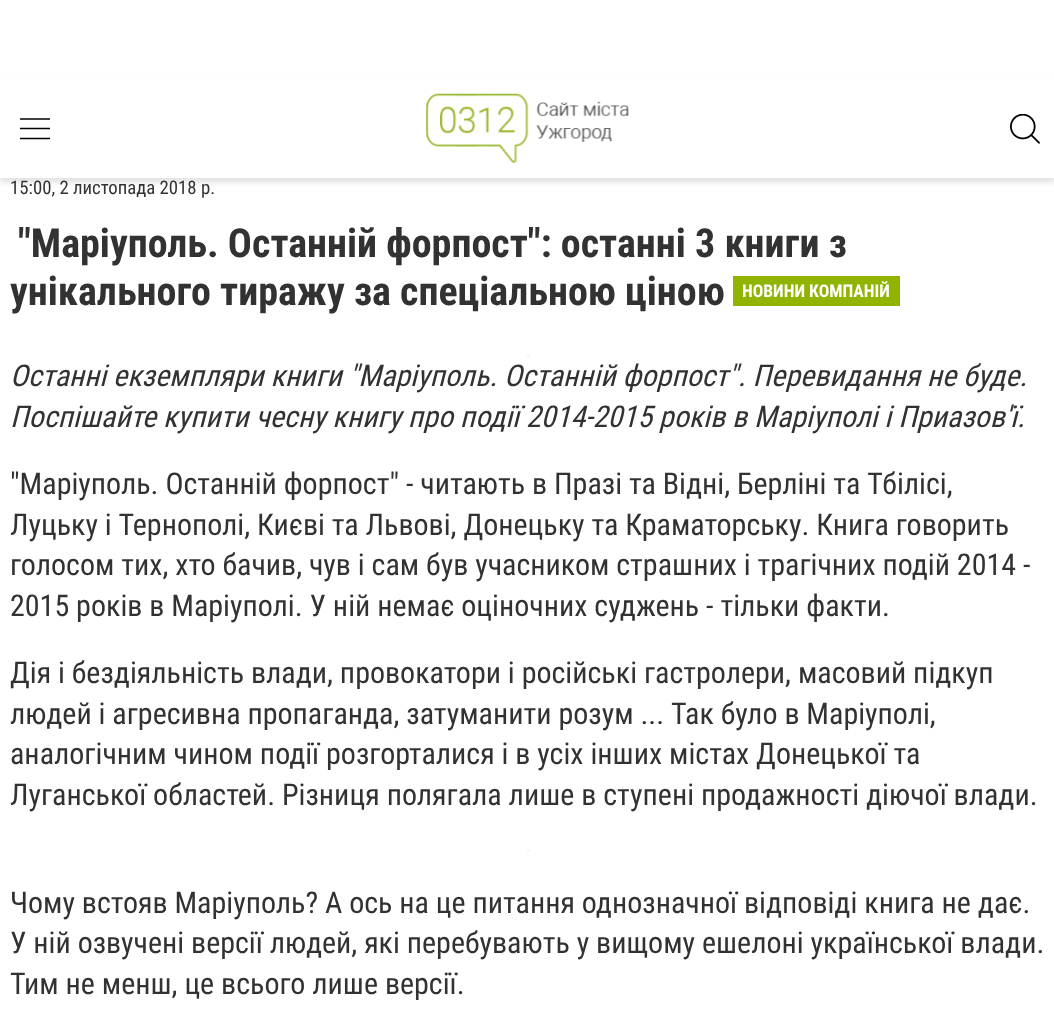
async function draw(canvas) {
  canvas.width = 1054
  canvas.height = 1033
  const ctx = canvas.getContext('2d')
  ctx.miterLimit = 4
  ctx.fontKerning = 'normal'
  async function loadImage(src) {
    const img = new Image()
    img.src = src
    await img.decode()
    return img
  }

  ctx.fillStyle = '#fff'
  ctx.fillRect(0, 0, 1054, 1033)
  ctx.fillStyle = '#0000001a'
  ctx.filter = 'blur(2.5px)'
  ctx.beginPath()
  ctx.rect(0, 79, 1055, 104)
  ctx.fill()
  ctx.filter = 'none'
  ctx.fillStyle = '#fff'
  ctx.fillRect(0, 76, 1054, 102)
  ctx.fillStyle = '#404040'
  ctx.fillRect(20, 118, 30, 2)
  ctx.beginPath()
  ctx.moveTo(20, 138.5)
  ctx.lineTo(50, 138.5)
  ctx.moveTo(20, 128.5)
  ctx.lineTo(50, 128.5)
  ctx.strokeStyle = '#000'
  ctx.lineWidth = 1.5
  ctx.stroke()
  ctx.drawImage(await loadImage('image0.png'), 426, 93, 203, 70)
  ctx.drawImage(await loadImage('image1.png'), 1010, 114, 30, 30)
  ctx.font = '18.75px Roboto Condensed'
  ctx.fillStyle = '#323232'
  ctx.fillText('15:00, 2 листопада 2018 р.', 10, 194)
  ctx.font = 'bold 40px Roboto Condensed'
  ctx.fillText('"Маріуполь. Останній форпост": останні 3 книги з', 18, 257)
  ctx.fillText('унікального тиражу за спеціальною ціною', 10, 305)
  ctx.fillStyle = '#90b400'
  ctx.fillRect(733, 276, 167, 30)
  ctx.font = 'bold 17.5px Roboto Condensed'
  ctx.fillStyle = '#fff'
  ctx.fillText('НОВИНИ КОМПАНІЙ', 742, 297)
  ctx.drawImage(await loadImage('image2.png'), 527, 355, 2, 2)
  ctx.font = 'italic 30px Roboto Condensed'
  ctx.fillStyle = '#323232'
  ctx.fillText('Останні екземпляри книги "Маріуполь. Останній форпост". Перевидання не буде.', 10, 386)
  ctx.fillText('Поспішайте купити чесну книгу про події 2014-2015 років в Маріуполі і Приазов\'ї.', 10, 427)
  ctx.font = '30px Roboto Condensed'
  ctx.fillText('"Маріуполь. Останній форпост" - читають в Празі та Відні, Берліні та Тбілісі,', 10, 494)
  ctx.fillText('Луцьку і Тернополі, Києві та Львові, Донецьку та Краматорську. Книга говорить', 10, 535)
  ctx.fillText('голосом тих, хто бачив, чув і сам був учасником страшних і трагічних подій 2014 -', 10, 575)
  ctx.fillText('2015 років в Маріуполі. У ній немає оціночних суджень - тільки факти.', 10, 616)
  ctx.fillText('Дія і бездіяльність влади, провокатори і російські гастролери, масовий підкуп', 10, 683)
  ctx.fillText('людей і агресивна пропаганда, затуманити розум ... Так було в Маріуполі,', 10, 724)
  ctx.fillText('аналогічним чином події розгорталися і в усіх інших містах Донецької та', 10, 764)
  ctx.fillText('Луганської областей. Різниця полягала лише в ступені продажності діючої влади.', 10, 805)
  ctx.drawImage(await loadImage('image2.png'), 527, 850, 2, 2)
  ctx.fillText('Чому встояв Маріуполь? А ось на це питання однозначної відповіді книга не дає.', 10, 913)
  ctx.fillText('У ній озвучені версії людей, які перебувають у вищому ешелоні української влади.', 10, 953)
  ctx.fillText('Тим не менш, це всього лише версії.', 10, 994)
}

draw(document.querySelector('canvas'))
